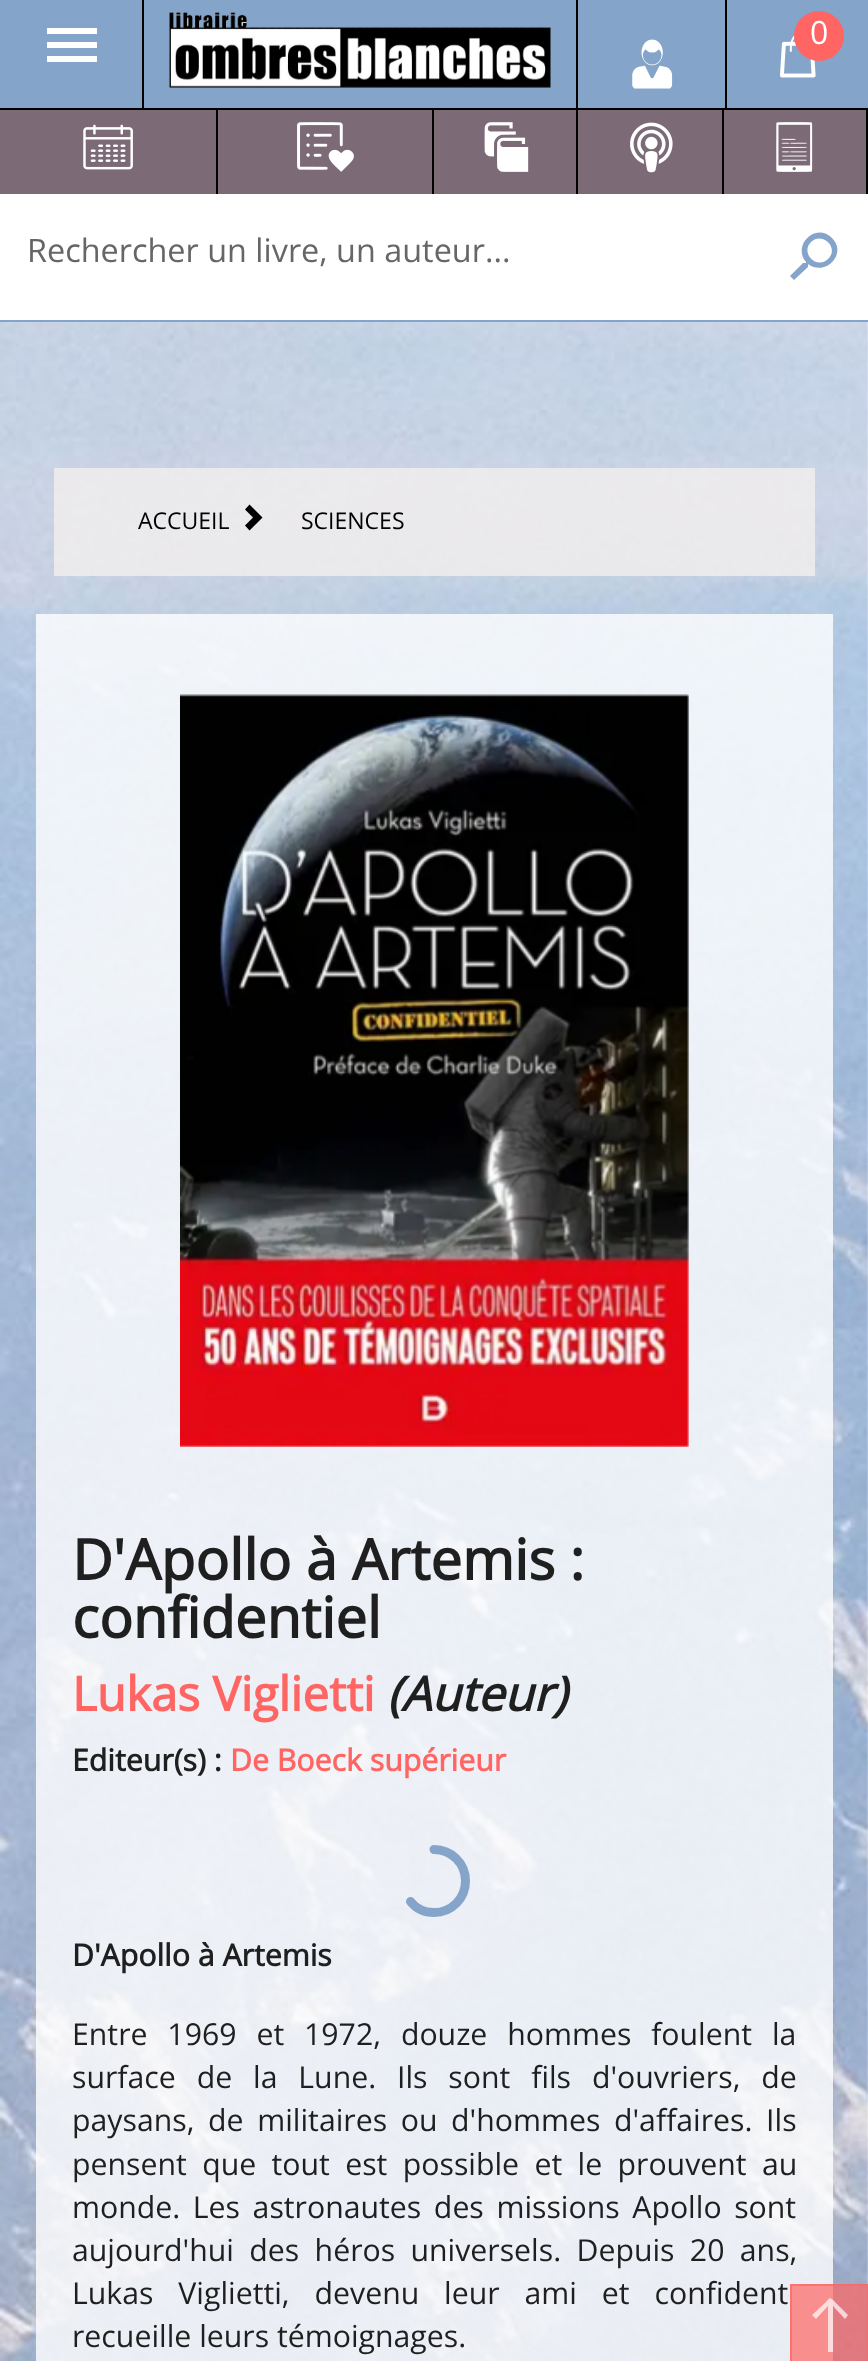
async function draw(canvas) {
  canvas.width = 868
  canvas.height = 2361
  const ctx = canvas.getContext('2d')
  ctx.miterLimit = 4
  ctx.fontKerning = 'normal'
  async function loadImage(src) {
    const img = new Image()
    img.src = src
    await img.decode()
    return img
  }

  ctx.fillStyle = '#fff'
  ctx.fillRect(0, 0, 868, 2361)
  ctx.drawImage(await loadImage('image0.png'), 0, 322, 868, 2039)
  ctx.fillStyle = '#7c6a77'
  ctx.fillRect(0, 110, 866, 84)
  ctx.fillStyle = '#84a4ca'
  ctx.fillRect(0, 0, 142, 108)
  ctx.fillStyle = '#000'
  ctx.fillRect(142, 0, 2, 108)
  ctx.fillStyle = '#fff'
  ctx.beginPath()
  ctx.moveTo(47, 28)
  ctx.lineTo(97, 28)
  ctx.lineTo(97, 34)
  ctx.lineTo(47, 34)
  ctx.closePath()
  ctx.moveTo(47, 48)
  ctx.lineTo(47, 42)
  ctx.lineTo(97, 42)
  ctx.lineTo(97, 48)
  ctx.closePath()
  ctx.moveTo(47, 62)
  ctx.lineTo(47, 56)
  ctx.lineTo(97, 56)
  ctx.lineTo(97, 62)
  ctx.closePath()
  ctx.fill()
  ctx.fillStyle = '#84a4ca'
  ctx.fillRect(144, 0, 432, 108)
  ctx.fillStyle = '#000'
  ctx.fillRect(576, 0, 2, 108)
  ctx.drawImage(await loadImage('image1.png'), 168, 12, 383, 76)
  ctx.fillStyle = '#84a4ca'
  ctx.fillRect(578, 0, 147, 108)
  ctx.drawImage(await loadImage('image2.png'), 632, 39, 41, 50)
  ctx.fillRect(727, 0, 141, 108)
  ctx.fillStyle = '#000'
  ctx.fillRect(725, 0, 2, 108)
  ctx.drawImage(await loadImage('image3.png'), 780, 35, 36, 43)
  ctx.fillStyle = '#ff6562'
  ctx.beginPath()
  ctx.arc(819, 36, 25, 0, 2 * Math.PI)
  ctx.fill()
  ctx.font = '32px Open Sans'
  ctx.fillStyle = '#fff'
  ctx.fillText('0', 810, 44)
  ctx.fillStyle = '#000'
  ctx.fillRect(0, 108, 868, 2)
  ctx.fillRect(216, 108, 2, 86)
  ctx.drawImage(await loadImage('image4.png'), 83, 124, 50, 46)
  ctx.fillRect(432, 108, 2, 86)
  ctx.drawImage(await loadImage('image5.png'), 297, 122, 57, 50)
  ctx.fillRect(576, 108, 2, 86)
  ctx.drawImage(await loadImage('image6.png'), 484, 122, 45, 50)
  ctx.fillRect(722, 108, 2, 86)
  ctx.drawImage(await loadImage('image7.png'), 630, 122, 43, 51)
  ctx.fillRect(866, 108, 2, 86)
  ctx.drawImage(await loadImage('image8.png'), 776, 122, 37, 50)
  ctx.fillStyle = '#84a4ca'
  ctx.fillRect(0, 320, 868, 2)
  ctx.font = '32.4px Open Sans'
  ctx.fillStyle = '#666'
  ctx.fillText('Rechercher un livre, un auteur...', 27, 262)
  ctx.fillStyle = '#84a4ca'
  ctx.beginPath()
  ctx.moveTo(811, 242)
  ctx.bezierCurveTo(800, 253, 817, 270, 828, 259)
  ctx.bezierCurveTo(840, 248, 822, 231, 811, 242)
  ctx.closePath()
  ctx.moveTo(808, 267)
  ctx.lineTo(794, 280)
  ctx.lineTo(790, 276)
  ctx.lineTo(803, 263)
  ctx.lineTo(806, 263)
  ctx.lineTo(806, 262)
  ctx.bezierCurveTo(792, 245, 816, 222, 832, 238)
  ctx.bezierCurveTo(848, 254, 825, 277, 808, 264)
  ctx.lineTo(808, 265)
  ctx.closePath()
  ctx.fill()
  ctx.fillStyle = '#f3efedcc'
  ctx.fillRect(54, 468, 761, 108)
  ctx.font = '23px Open Sans'
  ctx.fillStyle = '#000'
  ctx.fillText('ACCUEIL', 138, 529)
  ctx.beginPath()
  ctx.moveTo(249.5, 504.5)
  ctx.lineTo(245, 509.5)
  ctx.lineTo(253, 517.5)
  ctx.lineTo(245, 525.5)
  ctx.lineTo(249.5, 530.5)
  ctx.lineTo(262.5, 517.5)
  ctx.closePath()
  ctx.fill()
  ctx.fillText('SCIENCES', 301, 529)
  ctx.fillStyle = '#ffffffcc'
  ctx.fillRect(36, 614, 797, 1747)
  ctx.drawImage(await loadImage('image9.png'), 180, 694, 509, 753)
  ctx.font = 'bold 56.25px Open Sans'
  ctx.fillStyle = '#1f1f20'
  ctx.fillText('D\'Apollo à Artemis :', 72, 1580)
  ctx.fillText('confidentiel', 72, 1638)
  ctx.font = 'bold 47.5px Open Sans'
  ctx.fillStyle = '#ff6562'
  ctx.fillText('Lukas Viglietti', 72, 1711)
  ctx.font = 'italic bold 47.5px Open Sans'
  ctx.fillStyle = '#1f1f20'
  ctx.fillText('(Auteur)', 387, 1711)
  ctx.font = 'bold 30.25px Open Sans'
  ctx.fillText('Editeur(s) :', 72, 1771)
  ctx.fillStyle = '#ff6562'
  ctx.fillText('De Boeck supérieur', 230, 1771)
  ctx.beginPath()
  ctx.moveTo(434, 1849.5)
  ctx.bezierCurveTo(451.5, 1849.5, 465.5, 1863.5, 465.5, 1881)
  ctx.bezierCurveTo(465.5, 1898.5, 451.5, 1912.5, 434, 1912.5)
  ctx.bezierCurveTo(424.5, 1912.5, 416, 1908.5, 410.5, 1901.5)
  ctx.strokeStyle = '#84a4ca'
  ctx.lineWidth = 9
  ctx.lineCap = 'round'
  ctx.stroke()
  ctx.fillStyle = '#1f1f20'
  ctx.fillText('D\'Apollo à Artemis', 72, 1966)
  ctx.wordSpacing = '12px'
  ctx.font = '30.25px Open Sans'
  ctx.fillText('Entre 1969 et 1972, douze hommes foulent la', 72, 2045)
  ctx.wordSpacing = '13px'
  ctx.fillText('surface de la Lune. Ils sont fils d\'ouvriers, de', 72, 2088)
  ctx.wordSpacing = '5.75px'
  ctx.fillText('paysans, de militaires ou d\'hommes d\'affaires. Ils', 72, 2131)
  ctx.wordSpacing = '7.5px'
  ctx.fillText('pensent que tout est possible et le prouvent au', 72, 2175)
  ctx.wordSpacing = '4.75px'
  ctx.fillText('monde. Les astronautes des missions Apollo sont', 72, 2218)
  ctx.wordSpacing = '7.5px'
  ctx.fillText('aujourd\'hui des héros universels. Depuis 20 ans,', 72, 2261)
  ctx.wordSpacing = '17px'
  ctx.fillText('Lukas Viglietti, devenu leur ami et confident', 72, 2304)
  ctx.wordSpacing = '0px'
  ctx.fillText('recueille leurs témoignages.', 72, 2347)
  ctx.fillStyle = '#ff6562b3'
  ctx.fillRect(790, 2284, 78, 77)
  ctx.strokeStyle = '#ff6562b3'
  ctx.lineWidth = 2
  ctx.strokeRect(791, 2285, 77, 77)
  ctx.fillStyle = '#ffffffb3'
  ctx.beginPath()
  ctx.moveTo(848, 2315)
  ctx.lineTo(835, 2302)
  ctx.bezierCurveTo(830, 2297, 830, 2297, 826, 2302)
  ctx.lineTo(812, 2315)
  ctx.lineTo(816, 2319)
  ctx.lineTo(828, 2306)
  ctx.lineTo(828, 2352)
  ctx.lineTo(833, 2352)
  ctx.lineTo(833, 2306)
  ctx.lineTo(845, 2319)
  ctx.closePath()
  ctx.fill()
}

draw(document.querySelector('canvas'))
